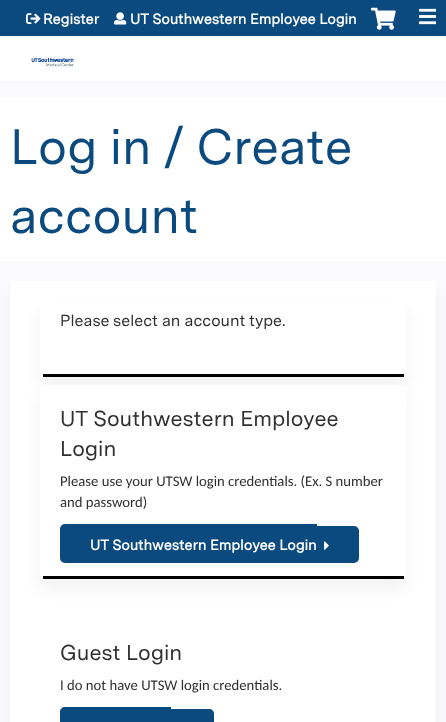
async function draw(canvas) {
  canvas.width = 446
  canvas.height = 722
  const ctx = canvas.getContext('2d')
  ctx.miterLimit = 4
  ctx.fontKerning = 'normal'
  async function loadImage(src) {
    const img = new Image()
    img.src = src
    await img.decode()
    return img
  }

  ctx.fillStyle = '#fbfbfd'
  ctx.fillRect(0, 0, 446, 722)
  ctx.fillStyle = '#fff'
  ctx.fillRect(0, 36, 446, 45)
  ctx.fillStyle = '#0b4a7f'
  ctx.fillRect(0, 0, 446, 36)
  ctx.drawImage(await loadImage('image0.png'), 26, 13, 15, 11)
  ctx.font = 'bold 14.4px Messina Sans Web'
  ctx.fillStyle = '#fff'
  ctx.fillText('Register', 43, 24)
  ctx.drawImage(await loadImage('image1.png'), 114, 12, 13, 13)
  ctx.fillText('UT Southwestern Employee Login', 130, 24)
  ctx.drawImage(await loadImage('image2.png'), 371, 7, 25, 23)
  ctx.drawImage(await loadImage('image3.png'), 419, 8, 17, 17)
  ctx.drawImage(await loadImage('image4.png'), 31, 57, 43, 10)
  ctx.fillRect(0, 97, 446, 164)
  ctx.wordSpacing = '-0.5px'
  ctx.font = '49.5px Messina Sans Web'
  ctx.fillStyle = '#0b4a7f'
  ctx.fillText('Log in / Create', 10, 164)
  ctx.wordSpacing = '0px'
  ctx.fillText('account', 10, 233)
  ctx.fillStyle = '#0000000d'
  ctx.filter = 'blur(7.5px)'
  ctx.beginPath()
  ctx.roundRect(10, 291, 426, 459, 5)
  ctx.fill()
  ctx.filter = 'none'
  ctx.fillStyle = '#fff'
  ctx.beginPath()
  ctx.roundRect(10, 281, 426, 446, 5)
  ctx.fill()
  ctx.fillStyle = '#0000000d'
  ctx.filter = 'blur(7.5px)'
  ctx.beginPath()
  ctx.roundRect(40, 311, 366, 76, 5)
  ctx.fill()
  ctx.filter = 'none'
  ctx.fillStyle = '#fff'
  ctx.beginPath()
  ctx.roundRect(40, 301, 366, 76, 5)
  ctx.fill()
  ctx.fillStyle = '#000'
  ctx.fillRect(43, 374, 361, 3)
  ctx.font = '16px Messina Sans Web'
  ctx.fillStyle = '#2f2f2f'
  ctx.fillText('Please select an account type.', 60, 326)
  ctx.fillStyle = '#0000000d'
  ctx.filter = 'blur(7.5px)'
  ctx.beginPath()
  ctx.roundRect(40, 395, 366, 194, 5)
  ctx.fill()
  ctx.filter = 'none'
  ctx.fillStyle = '#fff'
  ctx.beginPath()
  ctx.roundRect(40, 385, 366, 194, 5)
  ctx.fill()
  ctx.fillStyle = '#000'
  ctx.fillRect(43, 576, 361, 3)
  ctx.font = '21.6px Messina Sans Web'
  ctx.fillStyle = '#2f2f2f'
  ctx.fillText('UT Southwestern Employee', 60, 426)
  ctx.fillText('Login', 60, 456)
  ctx.font = '14.7px Carlito'
  ctx.fillText('Please use your UTSW login credentials. (Ex. S number', 60, 486)
  ctx.fillText('and password)', 60, 507)
  ctx.fillStyle = '#0b4a7f'
  ctx.beginPath()
  ctx.roundRect(60, 524, 257, 39, [5, 0, 0, 5])
  ctx.fill()
  ctx.font = 'bold 14.4px Messina Sans Web'
  ctx.fillStyle = '#fff'
  ctx.fillText('UT Southwestern Employee Login', 90, 550)
  ctx.fillStyle = '#0b4a7f'
  ctx.beginPath()
  ctx.roundRect(317, 526, 42, 37, [0, 5, 5, 0])
  ctx.fill()
  ctx.drawImage(await loadImage('image5.png'), 324, 541, 5, 9)
  ctx.font = '21.6px Messina Sans Web'
  ctx.fillStyle = '#2f2f2f'
  ctx.fillText('Guest Login', 60, 660)
  ctx.font = '14.7px Carlito'
  ctx.fillText('I do not have UTSW login credentials.', 60, 690)
  ctx.fillStyle = '#0b4a7f'
  ctx.beginPath()
  ctx.moveTo(65, 707)
  ctx.lineTo(171, 707)
  ctx.lineTo(171, 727)
  ctx.lineTo(65, 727)
  ctx.bezierCurveTo(62, 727, 60, 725, 60, 722)
  ctx.lineTo(60, 712)
  ctx.bezierCurveTo(60, 709, 62, 707, 65, 707)
  ctx.closePath()
  ctx.fill()
  ctx.beginPath()
  ctx.moveTo(171, 709)
  ctx.lineTo(209, 709)
  ctx.bezierCurveTo(212, 709, 214, 711, 214, 714)
  ctx.lineTo(214, 722)
  ctx.bezierCurveTo(214, 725, 212, 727, 209, 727)
  ctx.lineTo(171, 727)
  ctx.closePath()
  ctx.fill()
}

draw(document.querySelector('canvas'))
